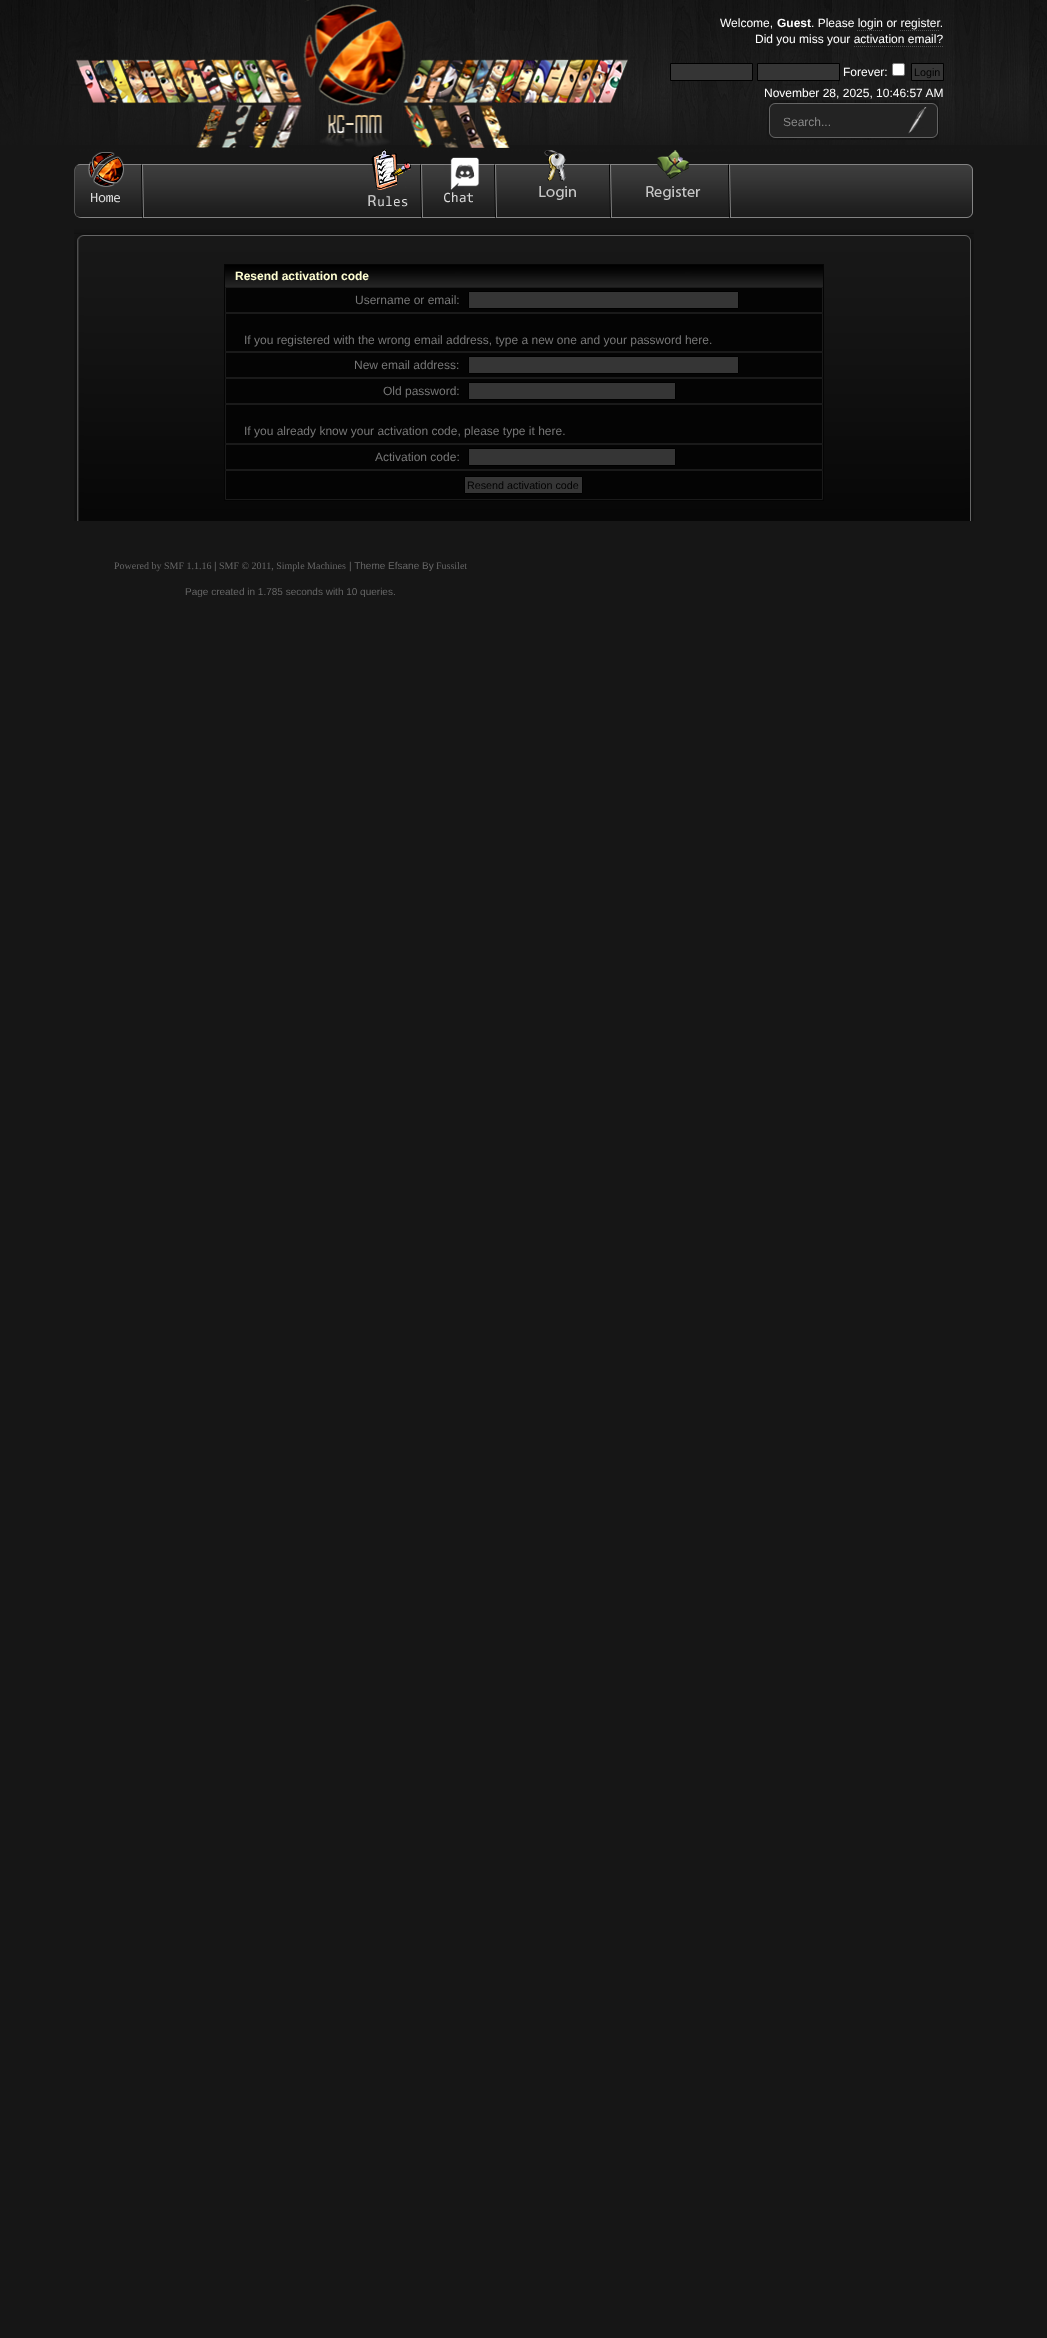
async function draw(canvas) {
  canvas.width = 1047
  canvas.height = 2338
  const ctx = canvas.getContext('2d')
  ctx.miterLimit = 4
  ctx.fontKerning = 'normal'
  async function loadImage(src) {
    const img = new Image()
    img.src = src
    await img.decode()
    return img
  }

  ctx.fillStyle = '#161616'
  ctx.fillRect(0, 0, 1047, 2338)
  ctx.drawImage(await loadImage('image0.png'), 0, 0, 1047, 145)
  ctx.drawImage(await loadImage('image1.png'), 76, 0, 552, 148)
  ctx.font = '12px Liberation Sans'
  ctx.fillStyle = '#fff'
  ctx.fillText('Welcome,', 720, 27)
  ctx.font = 'bold 12px Liberation Sans'
  ctx.fillText('Guest', 777, 27)
  ctx.font = '12px Liberation Sans'
  ctx.fillText('. Please login or register.', 811, 27)
  ctx.beginPath()
  ctx.moveTo(857, 30.5)
  ctx.lineTo(883, 30.5)
  ctx.strokeStyle = '#555'
  ctx.setLineDash([1, 1])
  ctx.stroke()
  ctx.beginPath()
  ctx.moveTo(900, 30.5)
  ctx.lineTo(940, 30.5)
  ctx.stroke()
  ctx.fillText('Did you miss your activation email?', 755, 43)
  ctx.beginPath()
  ctx.moveTo(854, 46.5)
  ctx.lineTo(944, 46.5)
  ctx.stroke()
  ctx.fillStyle = '#353535'
  ctx.beginPath()
  ctx.rect(670.5, 63.5, 82, 17)
  ctx.fill()
  ctx.strokeStyle = '#000'
  ctx.setLineDash([])
  ctx.stroke()
  ctx.beginPath()
  ctx.rect(757.5, 63.5, 82, 17)
  ctx.fill()
  ctx.stroke()
  ctx.fillStyle = '#fff'
  ctx.fillText('Forever:', 843, 76)
  ctx.beginPath()
  ctx.roundRect(892.5, 63.5, 12, 12, 1.5)
  ctx.fill()
  ctx.strokeStyle = '#767676'
  ctx.stroke()
  ctx.fillStyle = '#353535'
  ctx.beginPath()
  ctx.rect(911.5, 63.5, 32, 17)
  ctx.fill()
  ctx.strokeStyle = '#000'
  ctx.stroke()
  ctx.font = '10.75px Liberation Sans'
  ctx.fillStyle = '#000'
  ctx.fillText('Login', 914, 76)
  ctx.font = '12px Liberation Sans'
  ctx.fillStyle = '#fff'
  ctx.fillText('November 28, 2025, 10:46:57 AM', 764, 97)
  ctx.drawImage(await loadImage('image2.png'), 767, 100, 172, 40)
  ctx.fillStyle = '#888'
  ctx.fillText('Search...', 783, 126)
  ctx.drawImage(await loadImage('image3.png'), 74, 149, 900, 69)
  ctx.drawImage(await loadImage('image4.png'), 74, 164, 9, 54)
  ctx.drawImage(await loadImage('image5.png'), 967, 164, 7, 54)
  ctx.drawImage(await loadImage('image6.png'), 74, 152, 70, 66)
  ctx.drawImage(await loadImage('image7.png'), 368, 149, 55, 69)
  ctx.drawImage(await loadImage('image8.png'), 444, 157, 53, 61)
  ctx.drawImage(await loadImage('image9.png'), 539, 150, 73, 68)
  ctx.drawImage(await loadImage('image10.png'), 646, 150, 85, 68)
  ctx.drawImage(await loadImage('image11.png'), 74, 228, 900, 293)
  ctx.drawImage(await loadImage('image12.png'), 965, 234, 9, 287)
  ctx.drawImage(await loadImage('image13.png'), 74, 234, 10, 287)
  ctx.strokeStyle = '#040404'
  ctx.strokeRect(224.5, 264.5, 599, 236)
  ctx.drawImage(await loadImage('image14.png'), 225, 265, 598, 22)
  ctx.font = 'bold 12px Liberation Sans'
  ctx.fillStyle = '#ffffd2'
  ctx.fillText('Resend activation code', 235, 280)
  ctx.fillStyle = '#040404'
  ctx.beginPath()
  ctx.rect(225.5, 287.5, 597, 25)
  ctx.fill()
  ctx.strokeStyle = '#1a1a1a'
  ctx.stroke()
  ctx.font = '12px Liberation Sans'
  ctx.fillStyle = '#777'
  ctx.fillText('Username or email:', 355, 304)
  ctx.fillStyle = '#353535'
  ctx.beginPath()
  ctx.rect(468.5, 291.5, 270, 17)
  ctx.fill()
  ctx.strokeStyle = '#000'
  ctx.stroke()
  ctx.fillStyle = '#040404'
  ctx.beginPath()
  ctx.rect(225.5, 313.5, 597, 38)
  ctx.fill()
  ctx.strokeStyle = '#1a1a1a'
  ctx.stroke()
  ctx.fillStyle = '#777'
  ctx.fillText('If you registered with the wrong email address, type a new one and your password here.', 244, 344)
  ctx.fillStyle = '#040404'
  ctx.beginPath()
  ctx.rect(225.5, 352.5, 597, 25)
  ctx.fill()
  ctx.stroke()
  ctx.fillStyle = '#777'
  ctx.fillText('New email address:', 354, 369)
  ctx.fillStyle = '#353535'
  ctx.beginPath()
  ctx.rect(468.5, 356.5, 270, 17)
  ctx.fill()
  ctx.strokeStyle = '#000'
  ctx.stroke()
  ctx.fillStyle = '#040404'
  ctx.beginPath()
  ctx.rect(225.5, 378.5, 597, 25)
  ctx.fill()
  ctx.strokeStyle = '#1a1a1a'
  ctx.stroke()
  ctx.fillStyle = '#777'
  ctx.fillText('Old password:', 383, 395)
  ctx.fillStyle = '#353535'
  ctx.beginPath()
  ctx.rect(468.5, 382.5, 207, 17)
  ctx.fill()
  ctx.strokeStyle = '#000'
  ctx.stroke()
  ctx.fillStyle = '#040404'
  ctx.beginPath()
  ctx.rect(225.5, 404.5, 597, 39)
  ctx.fill()
  ctx.strokeStyle = '#1a1a1a'
  ctx.stroke()
  ctx.fillStyle = '#777'
  ctx.fillText('If you already know your activation code, please type it here.', 244, 435)
  ctx.fillStyle = '#040404'
  ctx.beginPath()
  ctx.rect(225.5, 444.5, 597, 25)
  ctx.fill()
  ctx.stroke()
  ctx.fillStyle = '#777'
  ctx.fillText('Activation code:', 375, 461)
  ctx.fillStyle = '#353535'
  ctx.beginPath()
  ctx.rect(468.5, 448.5, 207, 17)
  ctx.fill()
  ctx.strokeStyle = '#000'
  ctx.stroke()
  ctx.fillStyle = '#040404'
  ctx.beginPath()
  ctx.rect(225.5, 470.5, 597, 29)
  ctx.fill()
  ctx.strokeStyle = '#1a1a1a'
  ctx.stroke()
  ctx.fillStyle = '#353535'
  ctx.beginPath()
  ctx.rect(464.5, 476.5, 118, 17)
  ctx.fill()
  ctx.strokeStyle = '#000'
  ctx.stroke()
  ctx.font = '10.75px Liberation Sans'
  ctx.fillStyle = '#000'
  ctx.fillText('Resend activation code', 467, 489)
  ctx.font = '10px Liberation Serif'
  ctx.fillStyle = '#666'
  ctx.fillText('Powered by SMF 1.1.16', 114, 569)
  ctx.font = '10px Liberation Sans'
  ctx.fillText('|', 214, 569)
  ctx.font = '10px Liberation Serif'
  ctx.fillText('SMF © 2011, Simple Machines', 219, 569)
  ctx.font = '10px Liberation Sans'
  ctx.fillText('| Theme Efsane By', 349, 569)
  ctx.font = '10px Liberation Serif'
  ctx.fillText('Fussilet', 436, 569)
  ctx.font = '10px Liberation Sans'
  ctx.fillText('Page created in 1.785 seconds with 10 queries.', 185, 595)
}

draw(document.querySelector('canvas'))
